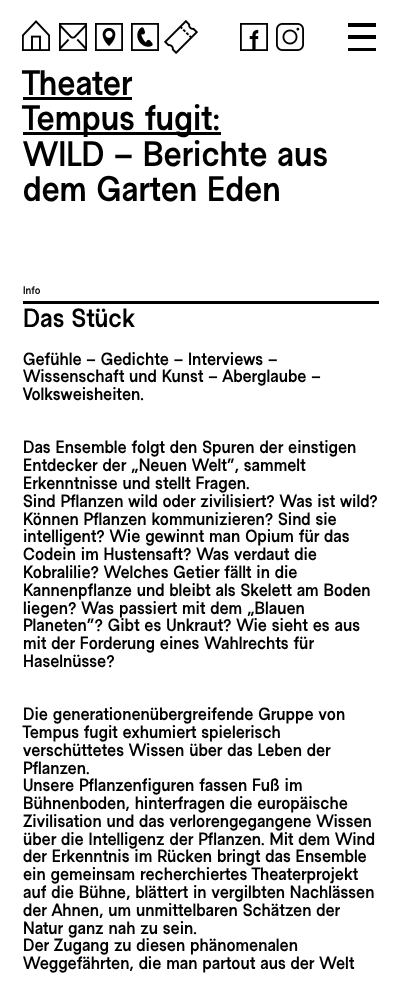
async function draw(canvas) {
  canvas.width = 404
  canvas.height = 983
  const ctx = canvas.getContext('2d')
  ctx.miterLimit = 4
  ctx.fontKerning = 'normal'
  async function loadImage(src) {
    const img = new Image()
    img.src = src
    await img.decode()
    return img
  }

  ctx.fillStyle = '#fff'
  ctx.fillRect(0, 0, 404, 983)
  ctx.drawImage(await loadImage('image0.png'), 22, 20, 28, 31)
  ctx.drawImage(await loadImage('image1.png'), 59, 23, 28, 28)
  ctx.drawImage(await loadImage('image2.png'), 95, 23, 28, 28)
  ctx.drawImage(await loadImage('image3.png'), 131, 23, 28, 28)
  ctx.drawImage(await loadImage('image4.png'), 164, 20, 34, 34)
  ctx.drawImage(await loadImage('image5.png'), 240, 23, 28, 28)
  ctx.drawImage(await loadImage('image6.png'), 276, 23, 28, 28)
  ctx.fillStyle = '#000'
  ctx.fillRect(348, 23, 28, 4)
  ctx.fillRect(348, 35, 28, 4)
  ctx.fillRect(348, 48, 28, 3)
  ctx.font = '35.5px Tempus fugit'
  ctx.fillText('Theater', 23, 95)
  ctx.fillRect(23, 97, 109, 3)
  ctx.fillRect(23, 132, 198, 3)
  ctx.fillText('Tempus fugit:', 23, 130)
  ctx.fillText('WILD – Berichte aus', 23, 166)
  ctx.fillText('dem Garten Eden', 23, 201)
  ctx.fillRect(23, 301, 356, 3)
  ctx.font = '11px Tempus fugit'
  ctx.fillText('Info', 23, 294)
  ctx.font = '26.5px Tempus fugit'
  ctx.fillText('Das Stück', 23, 327)
  ctx.font = '17.75px Tempus fugit'
  ctx.fillText('Gefühle – Gedichte – Interviews –', 23, 365)
  ctx.fillText('Wissenschaft und Kunst – Aberglaube –', 23, 382)
  ctx.fillText('Volksweisheiten.', 23, 400)
  ctx.fillText('Das Ensemble folgt den Spuren der einstigen', 23, 453)
  ctx.fillText('Entdecker der „Neuen Welt“, sammelt', 23, 471)
  ctx.fillText('Erkenntnisse und stellt Fragen.', 23, 489)
  ctx.fillText('Sind Pflanzen wild oder zivilisiert? Was ist wild?', 23, 507)
  ctx.fillText('Können Pflanzen kommunizieren? Sind sie', 23, 525)
  ctx.fillText('intelligent? Wie gewinnt man Opium für das', 23, 542)
  ctx.fillText('Codein im Hustensaft? Was verdaut die', 23, 560)
  ctx.fillText('Kobralilie? Welches Getier fällt in die', 23, 578)
  ctx.fillText('Kannenpflanze und bleibt als Skelett am Boden', 23, 596)
  ctx.fillText('liegen? Was passiert mit dem „Blauen', 23, 614)
  ctx.fillText('Planeten“? Gibt es Unkraut? Wie sieht es aus', 23, 631)
  ctx.fillText('mit der Forderung eines Wahlrechts für', 23, 649)
  ctx.fillText('Haselnüsse?', 23, 667)
  ctx.fillText('Die generationenübergreifende Gruppe von', 23, 720)
  ctx.fillText('Tempus fugit exhumiert spielerisch', 23, 738)
  ctx.fillText('verschüttetes Wissen über das Leben der', 23, 756)
  ctx.fillText('Pflanzen.', 23, 774)
  ctx.fillText('Unsere Pflanzenfiguren fassen Fuß im', 23, 791)
  ctx.fillText('Bühnenboden, hinterfragen die europäische', 23, 809)
  ctx.fillText('Zivilisation und das verlorengegangene Wissen', 23, 827)
  ctx.fillText('über die Intelligenz der Pflanzen. Mit dem Wind', 23, 845)
  ctx.fillText('der Erkenntnis im Rücken bringt das Ensemble', 23, 862)
  ctx.fillText('ein gemeinsam recherchiertes Theaterprojekt', 23, 880)
  ctx.fillText('auf die Bühne, blättert in vergilbten Nachlässen', 23, 898)
  ctx.fillText('der Ahnen, um unmittelbaren Schätzen der', 23, 916)
  ctx.fillText('Natur ganz nah zu sein.', 23, 934)
  ctx.fillText('Der Zugang zu diesen phänomenalen', 23, 951)
  ctx.fillText('Weggefährten, die man partout aus der Welt', 23, 969)
}

draw(document.querySelector('canvas'))
